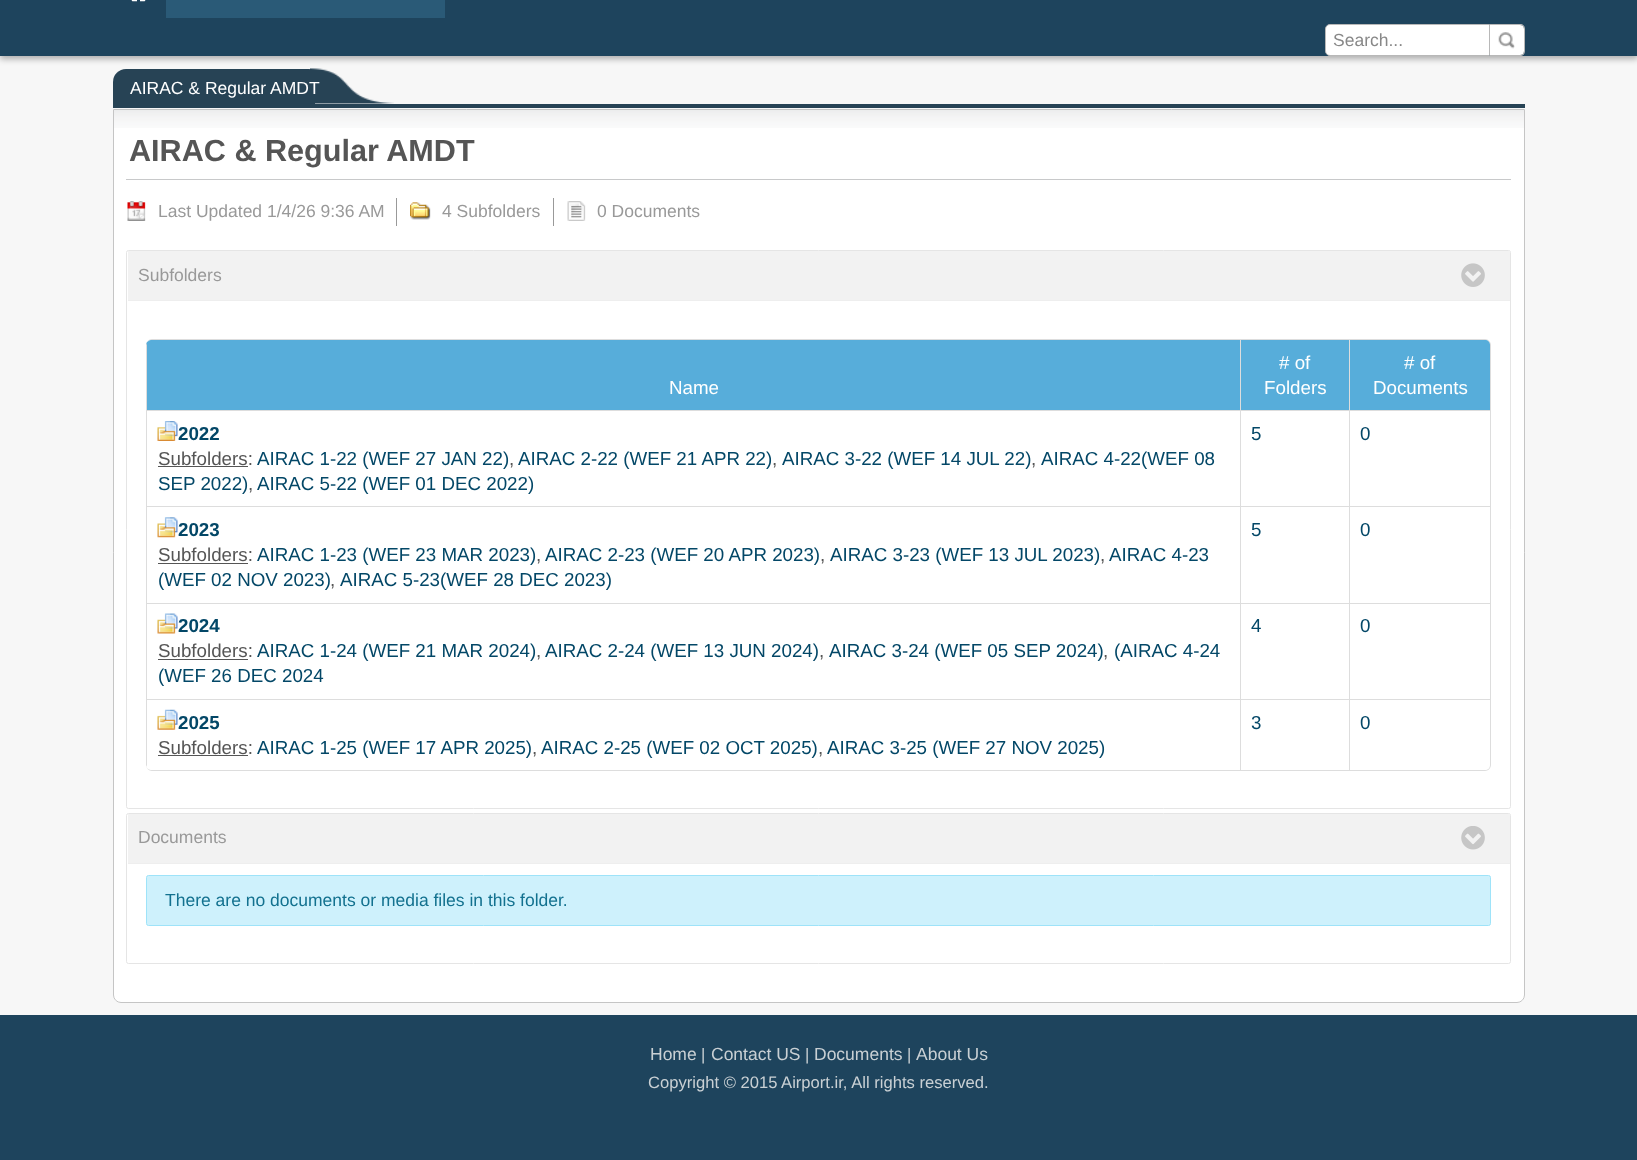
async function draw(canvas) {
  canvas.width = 1637
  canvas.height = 1160
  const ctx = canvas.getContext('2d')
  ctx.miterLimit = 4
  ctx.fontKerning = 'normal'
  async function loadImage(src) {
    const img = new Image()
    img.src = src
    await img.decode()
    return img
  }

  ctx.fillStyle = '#f7f7f7'
  ctx.fillRect(0, 0, 1637, 1160)
  ctx.fillStyle = '#0000004d'
  ctx.filter = 'blur(3px)'
  ctx.beginPath()
  ctx.rect(0, -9, 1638, 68)
  ctx.fill()
  ctx.filter = 'none'
  ctx.fillStyle = '#1e445d'
  ctx.fillRect(0, 0, 1637, 56)
  ctx.drawImage(await loadImage('image0.png'), 131, 0, 15, 2)
  ctx.fillStyle = '#2a5a77'
  ctx.fillRect(166, 0, 279, 18)
  ctx.fillStyle = '#fff'
  ctx.beginPath()
  ctx.roundRect(1325.5, 24.5, 164, 31, [4.5, 0, 0, 4.5])
  ctx.fill()
  ctx.strokeStyle = '#b8b8b8'
  ctx.stroke()
  ctx.font = '17.5px Liberation Sans'
  ctx.fillStyle = '#888'
  ctx.fillText('Search...', 1333, 46)
  ctx.fillStyle = '#fff'
  ctx.beginPath()
  ctx.roundRect(1490, 25, 34, 30, [0, 4, 4, 0])
  ctx.fill()
  ctx.drawImage(await loadImage('image1.png'), 1498, 32, 17, 17)
  ctx.fillStyle = '#b8b8b8'
  ctx.beginPath()
  ctx.moveTo(1490, 24)
  ctx.lineTo(1520, 24)
  ctx.bezierCurveTo(1523, 24, 1525, 26, 1525, 29)
  ctx.lineTo(1525, 51)
  ctx.bezierCurveTo(1525, 54, 1523, 56, 1520, 56)
  ctx.lineTo(1490, 56)
  ctx.closePath()
  ctx.moveTo(1490, 25)
  ctx.lineTo(1520, 25)
  ctx.bezierCurveTo(1522, 25, 1524, 26.5, 1524, 29)
  ctx.lineTo(1524, 51)
  ctx.bezierCurveTo(1524, 53.5, 1522, 55, 1520, 55)
  ctx.lineTo(1490, 55)
  ctx.closePath()
  ctx.fill('evenodd')
  ctx.fillStyle = '#274355'
  ctx.fillRect(113, 104, 1412, 4)
  ctx.beginPath()
  ctx.roundRect(113, 69, 202, 35, [13, 6, 0, 0])
  ctx.fill()
  ctx.drawImage(await loadImage('image2.png'), 310, 68, 84, 36)
  ctx.fillStyle = '#fff'
  ctx.fillText('AIRAC & Regular AMDT', 130, 94)
  ctx.beginPath()
  ctx.roundRect(113, 109, 1412, 894, [0, 0, 8, 8])
  ctx.fill()
  ctx.drawImage(await loadImage('image3.png'), 114, 110, 1410, 18)
  ctx.beginPath()
  ctx.roundRect(113.5, 109.5, 1411, 893, [0, 0, 7.5, 7.5])
  ctx.strokeStyle = '#c5c5c5'
  ctx.stroke()
  ctx.fillStyle = '#c8c9ca'
  ctx.fillRect(126, 179, 1385, 1)
  ctx.font = 'bold 30.6px Liberation Sans'
  ctx.fillStyle = '#555'
  ctx.fillText('AIRAC & Regular AMDT', 129, 161)
  ctx.drawImage(await loadImage('image4.png'), 127, 201, 19, 20)
  ctx.fillStyle = '#999'
  ctx.fillRect(396, 198, 1, 28)
  ctx.font = '17.5px Liberation Sans'
  ctx.fillText('Last Updated 1/4/26 9:36 AM', 158, 217)
  ctx.drawImage(await loadImage('image5.png'), 410, 202, 21, 18)
  ctx.fillRect(553, 198, 1, 28)
  ctx.fillText('4 Subfolders', 442, 217)
  ctx.drawImage(await loadImage('image6.png'), 567, 201, 19, 20)
  ctx.fillText('0 Documents', 597, 217)
  ctx.beginPath()
  ctx.roundRect(126.5, 250.5, 1384, 558, 2)
  ctx.strokeStyle = '#e5e5e5'
  ctx.stroke()
  ctx.fillStyle = '#f2f2f2'
  ctx.fillRect(128, 251, 1382, 49)
  ctx.fillStyle = '#999'
  ctx.fillText('Subfolders', 138, 281)
  ctx.drawImage(await loadImage('image7.png'), 1461, 263, 24, 24)
  ctx.fillStyle = '#eee'
  ctx.fillRect(128, 300, 1382, 1)
  ctx.fillStyle = '#ddd'
  ctx.beginPath()
  ctx.moveTo(152, 339)
  ctx.lineTo(1485, 339)
  ctx.bezierCurveTo(1488, 339, 1491, 342, 1491, 345)
  ctx.lineTo(1491, 765)
  ctx.bezierCurveTo(1491, 768, 1488, 771, 1485, 771)
  ctx.lineTo(152, 771)
  ctx.bezierCurveTo(149, 771, 146, 768, 146, 765)
  ctx.lineTo(146, 345)
  ctx.bezierCurveTo(146, 342, 149, 339, 152, 339)
  ctx.closePath()
  ctx.moveTo(152, 340)
  ctx.lineTo(1485, 340)
  ctx.bezierCurveTo(1488, 340, 1490, 342, 1490, 345)
  ctx.lineTo(1490, 765)
  ctx.bezierCurveTo(1490, 768, 1488, 770, 1485, 770)
  ctx.lineTo(152, 770)
  ctx.bezierCurveTo(149, 770, 146, 768, 146, 765)
  ctx.lineTo(146, 345)
  ctx.bezierCurveTo(146, 342, 149, 340, 152, 340)
  ctx.closePath()
  ctx.fill('evenodd')
  ctx.fillStyle = '#57adda'
  ctx.beginPath()
  ctx.moveTo(152, 340)
  ctx.bezierCurveTo(149, 340, 146, 342, 146, 345)
  ctx.lineTo(146, 410)
  ctx.lineTo(1240, 410)
  ctx.lineTo(1240, 340)
  ctx.closePath()
  ctx.fill()
  ctx.fillStyle = '#ddd'
  ctx.beginPath()
  ctx.moveTo(146, 410)
  ctx.lineTo(146, 345)
  ctx.lineTo(147, 343)
  ctx.lineTo(147, 410)
  ctx.closePath()
  ctx.fill()
  ctx.font = '18.75px Liberation Sans'
  ctx.fillStyle = '#fff'
  ctx.fillText('Name', 669, 394)
  ctx.fillStyle = '#57adda'
  ctx.fillRect(1241, 340, 108, 70)
  ctx.fillStyle = '#ddd'
  ctx.fillRect(1240, 340, 1, 70)
  ctx.fillStyle = '#fff'
  ctx.fillText('# of', 1279, 369)
  ctx.fillText('Folders', 1264, 394)
  ctx.fillStyle = '#57adda'
  ctx.beginPath()
  ctx.moveTo(1349, 340)
  ctx.lineTo(1349, 410)
  ctx.lineTo(1490, 410)
  ctx.lineTo(1490, 345)
  ctx.bezierCurveTo(1490, 342, 1488, 340, 1485, 340)
  ctx.closePath()
  ctx.fill()
  ctx.fillStyle = '#ddd'
  ctx.fillRect(1349, 340, 1, 70)
  ctx.fillStyle = '#fff'
  ctx.fillText('# of', 1404, 369)
  ctx.fillText('Documents', 1373, 394)
  ctx.fillStyle = '#ddd'
  ctx.fillRect(146, 410, 1344, 1)
  ctx.fillRect(146, 410, 1, 96)
  ctx.drawImage(await loadImage('image8.png'), 157, 421, 21, 20)
  ctx.font = 'bold 18.75px Liberation Sans'
  ctx.fillStyle = '#034767'
  ctx.fillText('2022', 178, 440)
  ctx.font = '18.75px Liberation Sans'
  ctx.fillStyle = '#555'
  ctx.fillText('Subfolders:', 158, 465)
  ctx.fillRect(158, 466, 90, 1)
  ctx.fillStyle = '#034767'
  ctx.fillText('AIRAC 1-22 (WEF 27 JAN 22)', 257, 465)
  ctx.fillStyle = '#555'
  ctx.fillText(',', 509, 465)
  ctx.fillStyle = '#034767'
  ctx.fillText('AIRAC 2-22 (WEF 21 APR 22)', 518, 465)
  ctx.fillStyle = '#555'
  ctx.fillText(',', 772, 465)
  ctx.fillStyle = '#034767'
  ctx.fillText('AIRAC 3-22 (WEF 14 JUL 22)', 782, 465)
  ctx.fillStyle = '#555'
  ctx.fillText(',', 1031, 465)
  ctx.fillStyle = '#034767'
  ctx.fillText('AIRAC 4-22(WEF 08', 1041, 465)
  ctx.fillText('SEP 2022)', 158, 490)
  ctx.fillStyle = '#555'
  ctx.fillText(',', 248, 490)
  ctx.fillStyle = '#034767'
  ctx.fillText('AIRAC 5-22 (WEF 01 DEC 2022)', 257, 490)
  ctx.fillStyle = '#ddd'
  ctx.fillRect(1240, 410, 1, 96)
  ctx.fillStyle = '#034767'
  ctx.fillText('5', 1251, 440)
  ctx.fillStyle = '#ddd'
  ctx.fillRect(1349, 410, 1, 96)
  ctx.fillStyle = '#034767'
  ctx.fillText('0', 1360, 440)
  ctx.fillStyle = '#ddd'
  ctx.fillRect(146, 506, 1344, 1)
  ctx.fillRect(146, 506, 1, 97)
  ctx.drawImage(await loadImage('image9.png'), 157, 517, 21, 21)
  ctx.font = 'bold 18.75px Liberation Sans'
  ctx.fillStyle = '#034767'
  ctx.fillText('2023', 178, 536)
  ctx.font = '18.75px Liberation Sans'
  ctx.fillStyle = '#555'
  ctx.fillText('Subfolders:', 158, 561)
  ctx.fillRect(158, 563, 90, 1)
  ctx.fillStyle = '#034767'
  ctx.fillText('AIRAC 1-23 (WEF 23 MAR 2023)', 257, 561)
  ctx.fillStyle = '#555'
  ctx.fillText(',', 536, 561)
  ctx.fillStyle = '#034767'
  ctx.fillText('AIRAC 2-23 (WEF 20 APR 2023)', 545, 561)
  ctx.fillStyle = '#555'
  ctx.fillText(',', 820, 561)
  ctx.fillStyle = '#034767'
  ctx.fillText('AIRAC 3-23 (WEF 13 JUL 2023)', 830, 561)
  ctx.fillStyle = '#555'
  ctx.fillText(',', 1100, 561)
  ctx.fillStyle = '#034767'
  ctx.fillText('AIRAC 4-23', 1109, 561)
  ctx.fillText('(WEF 02 NOV 2023)', 158, 586)
  ctx.fillStyle = '#555'
  ctx.fillText(',', 330, 586)
  ctx.fillStyle = '#034767'
  ctx.fillText('AIRAC 5-23(WEF 28 DEC 2023)', 340, 586)
  ctx.fillStyle = '#ddd'
  ctx.fillRect(1240, 506, 1, 97)
  ctx.fillStyle = '#034767'
  ctx.fillText('5', 1251, 536)
  ctx.fillStyle = '#ddd'
  ctx.fillRect(1349, 506, 1, 97)
  ctx.fillStyle = '#034767'
  ctx.fillText('0', 1360, 536)
  ctx.fillStyle = '#ddd'
  ctx.fillRect(146, 603, 1344, 1)
  ctx.fillRect(146, 603, 1, 96)
  ctx.drawImage(await loadImage('image10.png'), 157, 613, 21, 21)
  ctx.font = 'bold 18.75px Liberation Sans'
  ctx.fillStyle = '#034767'
  ctx.fillText('2024', 178, 632)
  ctx.font = '18.75px Liberation Sans'
  ctx.fillStyle = '#555'
  ctx.fillText('Subfolders:', 158, 657)
  ctx.fillRect(158, 659, 90, 1)
  ctx.fillStyle = '#034767'
  ctx.fillText('AIRAC 1-24 (WEF 21 MAR 2024)', 257, 657)
  ctx.fillStyle = '#555'
  ctx.fillText(',', 536, 657)
  ctx.fillStyle = '#034767'
  ctx.fillText('AIRAC 2-24 (WEF 13 JUN 2024)', 545, 657)
  ctx.fillStyle = '#555'
  ctx.fillText(',', 819, 657)
  ctx.fillStyle = '#034767'
  ctx.fillText('AIRAC 3-24 (WEF 05 SEP 2024)', 829, 657)
  ctx.fillStyle = '#555'
  ctx.fillText(',', 1103, 657)
  ctx.fillStyle = '#034767'
  ctx.fillText('(AIRAC 4-24', 1114, 657)
  ctx.fillText('(WEF 26 DEC 2024', 158, 682)
  ctx.fillStyle = '#ddd'
  ctx.fillRect(1240, 603, 1, 96)
  ctx.fillStyle = '#034767'
  ctx.fillText('4', 1251, 632)
  ctx.fillStyle = '#ddd'
  ctx.fillRect(1349, 603, 1, 96)
  ctx.fillStyle = '#034767'
  ctx.fillText('0', 1360, 632)
  ctx.fillStyle = '#ddd'
  ctx.fillRect(146, 699, 1344, 1)
  ctx.beginPath()
  ctx.moveTo(147, 767)
  ctx.lineTo(146, 765)
  ctx.lineTo(146, 699)
  ctx.lineTo(147, 699)
  ctx.closePath()
  ctx.fill()
  ctx.drawImage(await loadImage('image11.png'), 157, 709, 21, 21)
  ctx.font = 'bold 18.75px Liberation Sans'
  ctx.fillStyle = '#034767'
  ctx.fillText('2025', 178, 729)
  ctx.font = '18.75px Liberation Sans'
  ctx.fillStyle = '#555'
  ctx.fillText('Subfolders:', 158, 754)
  ctx.fillRect(158, 755, 90, 1)
  ctx.fillStyle = '#034767'
  ctx.fillText('AIRAC 1-25 (WEF 17 APR 2025)', 257, 754)
  ctx.fillStyle = '#555'
  ctx.fillText(',', 532, 754)
  ctx.fillStyle = '#034767'
  ctx.fillText('AIRAC 2-25 (WEF 02 OCT 2025)', 541, 754)
  ctx.fillStyle = '#555'
  ctx.fillText(',', 818, 754)
  ctx.fillStyle = '#034767'
  ctx.fillText('AIRAC 3-25 (WEF 27 NOV 2025)', 827, 754)
  ctx.fillStyle = '#ddd'
  ctx.fillRect(1240, 699, 1, 71)
  ctx.fillStyle = '#034767'
  ctx.fillText('3', 1251, 729)
  ctx.fillStyle = '#ddd'
  ctx.fillRect(1349, 699, 1, 71)
  ctx.fillStyle = '#034767'
  ctx.fillText('0', 1360, 729)
  ctx.beginPath()
  ctx.roundRect(126.5, 813.5, 1384, 150, 2)
  ctx.stroke()
  ctx.fillStyle = '#f2f2f2'
  ctx.fillRect(128, 814, 1382, 49)
  ctx.font = '17.5px Liberation Sans'
  ctx.fillStyle = '#999'
  ctx.fillText('Documents', 138, 843)
  ctx.drawImage(await loadImage('image12.png'), 1461, 826, 24, 24)
  ctx.fillStyle = '#eee'
  ctx.fillRect(128, 863, 1382, 1)
  ctx.fillStyle = '#cef1fc'
  ctx.beginPath()
  ctx.roundRect(146.5, 875.5, 1344, 50, 2)
  ctx.fill()
  ctx.strokeStyle = '#9ee3f9'
  ctx.stroke()
  ctx.fillStyle = '#12718f'
  ctx.fillText('There are no documents or media files in this folder.', 165, 906)
  ctx.fillStyle = '#1e445d'
  ctx.fillRect(0, 1015, 1637, 145)
  ctx.fillStyle = '#c9d0d4'
  ctx.fillText('Home', 650, 1060)
  ctx.font = '16.6px Liberation Sans'
  ctx.fillText('|', 701, 1060)
  ctx.font = '17.5px Liberation Sans'
  ctx.fillText('Contact US', 711, 1060)
  ctx.font = '16.6px Liberation Sans'
  ctx.fillText('|', 805, 1060)
  ctx.font = '17.5px Liberation Sans'
  ctx.fillText('Documents', 814, 1060)
  ctx.font = '16.6px Liberation Sans'
  ctx.fillText('|', 907, 1060)
  ctx.font = '17.5px Liberation Sans'
  ctx.fillText('About Us', 916, 1060)
  ctx.font = '16.6px Liberation Sans'
  ctx.fillText('Copyright © 2015 Airport.ir, All rights reserved.', 648, 1088)
}

draw(document.querySelector('canvas'))
